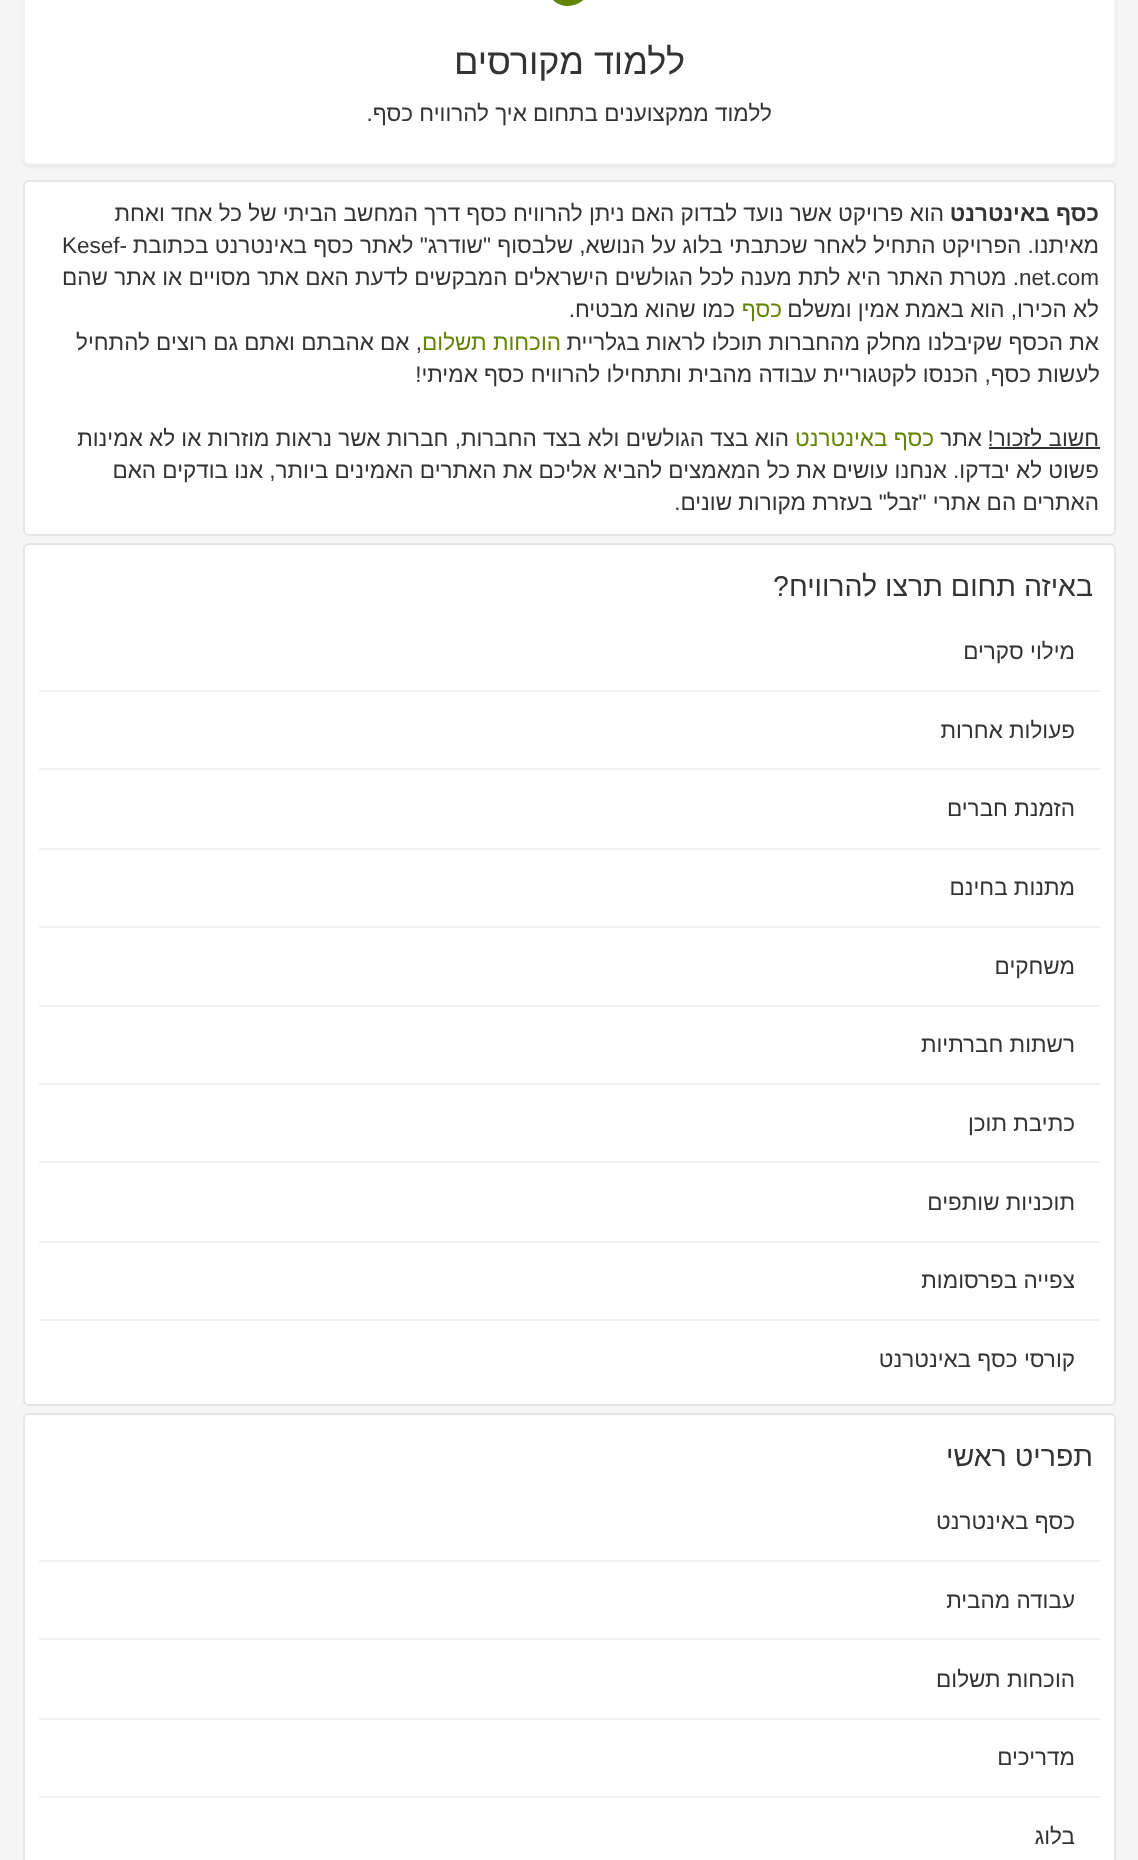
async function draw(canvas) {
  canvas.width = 1138
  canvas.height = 1860
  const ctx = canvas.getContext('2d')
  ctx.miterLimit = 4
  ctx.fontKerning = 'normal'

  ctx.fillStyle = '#f5f5f5'
  ctx.fillRect(0, 0, 1138, 1860)
  ctx.fillStyle = '#00000012'
  ctx.filter = 'blur(1.5px)'
  ctx.beginPath()
  ctx.roundRect(23, -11, 1093, 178, 6)
  ctx.fill()
  ctx.filter = 'none'
  ctx.fillStyle = '#fff'
  ctx.beginPath()
  ctx.roundRect(24, -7, 1091, 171, 5)
  ctx.fill()
  ctx.strokeStyle = '#f4f4f4'
  ctx.lineWidth = 2
  ctx.stroke()
  ctx.fillStyle = '#618500'
  ctx.beginPath()
  ctx.moveTo(549, -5)
  ctx.bezierCurveTo(534, -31, 573, -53, 588, -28)
  ctx.bezierCurveTo(603, -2, 564, 20, 549, -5)
  ctx.closePath()
  ctx.moveTo(558, -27)
  ctx.bezierCurveTo(543, -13, 565, 9, 579, -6)
  ctx.bezierCurveTo(594, -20, 572, -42, 558, -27)
  ctx.closePath()
  ctx.moveTo(565, -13)
  ctx.lineTo(565, -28)
  ctx.lineTo(568, -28)
  ctx.lineTo(568, -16)
  ctx.lineTo(576, -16)
  ctx.lineTo(576, -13)
  ctx.closePath()
  ctx.fill()
  ctx.direction = 'rtl'
  ctx.font = '36px Liberation Sans'
  ctx.fillStyle = '#333'
  ctx.fillText('ללמוד מקורסים', 685, 74)
  ctx.font = '22.5px Liberation Sans'
  ctx.fillText('ללמוד ממקצוענים בתחום איך להרוויח כסף.', 772, 121)
  ctx.fillStyle = '#fff'
  ctx.beginPath()
  ctx.roundRect(24, 181, 1091, 354, 5)
  ctx.fill()
  ctx.strokeStyle = '#e5e5e5'
  ctx.stroke()
  ctx.font = 'bold 22.5px Liberation Sans'
  ctx.fillStyle = '#333'
  ctx.fillText('כסף באינטרנט', 1099, 221)
  ctx.font = '22.5px Liberation Sans'
  ctx.fillText('הוא פרויקט אשר נועד לבדוק האם ניתן להרוויח כסף דרך המחשב הביתי של כל אחד ואחת', 944, 221)
  ctx.fillText('מאיתנו. הפרויקט התחיל לאחר שכתבתי בלוג על הנושא, שלבסוף "שודרג" לאתר כסף באינטרנט בכתובת', 1099, 253)
  ctx.direction = 'ltr'
  ctx.fillText('Kesef-', 62, 253)
  ctx.fillText('net.com', 1019, 285)
  ctx.direction = 'rtl'
  ctx.fillText('. מטרת האתר היא לתת מענה לכל הגולשים הישראלים המבקשים לדעת האם אתר מסויים או אתר שהם', 1019, 285)
  ctx.fillText('לא הכירו, הוא באמת אמין ומשלם', 1099, 317)
  ctx.fillStyle = '#618500'
  ctx.fillText('כסף', 782, 317)
  ctx.fillStyle = '#333'
  ctx.fillText('כמו שהוא מבטיח.', 735, 317)
  ctx.fillText('את הכסף שקיבלנו מחלק מהחברות תוכלו לראות בגלריית', 1099, 350)
  ctx.fillStyle = '#618500'
  ctx.fillText('הוכחות תשלום', 561, 350)
  ctx.fillStyle = '#333'
  ctx.fillText(', אם אהבתם ואתם גם רוצים להתחיל', 422, 350)
  ctx.fillText('לעשות כסף, הכנסו לקטגוריית עבודה מהבית ותתחילו להרוויח כסף אמיתי!', 1100, 382)
  ctx.fillText('חשוב לזכור!', 1099, 446)
  ctx.fillRect(989, 447, 111, 2)
  ctx.fillText('אתר', 982, 446)
  ctx.fillStyle = '#618500'
  ctx.fillText('כסף באינטרנט', 934, 446)
  ctx.fillStyle = '#333'
  ctx.fillText('הוא בצד הגולשים ולא בצד החברות, חברות אשר נראות מוזרות או לא אמינות', 789, 446)
  ctx.fillText('פשוט לא יבדקו. אנחנו עושים את כל המאמצים להביא אליכם את האתרים האמינים ביותר, אנו בודקים האם', 1099, 478)
  ctx.fillText('האתרים הם אתרי "זבל" בעזרת מקורות שונים.', 1099, 510)
  ctx.fillStyle = '#fff'
  ctx.beginPath()
  ctx.roundRect(24, 544, 1091, 861, 5)
  ctx.fill()
  ctx.stroke()
  ctx.font = '28.5px Liberation Sans'
  ctx.fillStyle = '#333'
  ctx.fillText('באיזה תחום תרצו להרוויח?', 1093, 596)
  ctx.fillStyle = '#f1f1f1'
  ctx.fillRect(39, 690, 1061, 2)
  ctx.font = '22.5px Liberation Sans'
  ctx.fillStyle = '#333'
  ctx.fillText('מילוי סקרים', 1075, 659)
  ctx.fillStyle = '#f1f1f1'
  ctx.fillRect(39, 768, 1061, 2)
  ctx.fillStyle = '#333'
  ctx.fillText('פעולות אחרות', 1075, 738)
  ctx.fillStyle = '#f1f1f1'
  ctx.fillRect(39, 848, 1061, 2)
  ctx.fillStyle = '#333'
  ctx.fillText('הזמנת חברים', 1075, 816)
  ctx.fillStyle = '#f1f1f1'
  ctx.fillRect(39, 926, 1061, 2)
  ctx.fillStyle = '#333'
  ctx.fillText('מתנות בחינם', 1075, 895)
  ctx.fillStyle = '#f1f1f1'
  ctx.fillRect(39, 1005, 1061, 2)
  ctx.fillStyle = '#333'
  ctx.fillText('משחקים', 1075, 974)
  ctx.fillStyle = '#f1f1f1'
  ctx.fillRect(39, 1083, 1061, 2)
  ctx.fillStyle = '#333'
  ctx.fillText('רשתות חברתיות', 1075, 1052)
  ctx.fillStyle = '#f1f1f1'
  ctx.fillRect(39, 1161, 1061, 2)
  ctx.fillStyle = '#333'
  ctx.fillText('כתיבת תוכן', 1075, 1131)
  ctx.fillStyle = '#f1f1f1'
  ctx.fillRect(39, 1241, 1061, 2)
  ctx.fillStyle = '#333'
  ctx.fillText('תוכניות שותפים', 1075, 1210)
  ctx.fillStyle = '#f1f1f1'
  ctx.fillRect(39, 1319, 1061, 2)
  ctx.fillStyle = '#333'
  ctx.fillText('צפייה בפרסומות', 1075, 1288)
  ctx.fillText('קורסי כסף באינטרנט', 1075, 1367)
  ctx.fillStyle = '#fff'
  ctx.beginPath()
  ctx.roundRect(24, 1414, 1091, 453, 5)
  ctx.fill()
  ctx.stroke()
  ctx.font = '28.5px Liberation Sans'
  ctx.fillStyle = '#333'
  ctx.fillText('תפריט ראשי', 1093, 1466)
  ctx.fillStyle = '#f1f1f1'
  ctx.fillRect(39, 1560, 1061, 2)
  ctx.font = '22.5px Liberation Sans'
  ctx.fillStyle = '#333'
  ctx.fillText('כסף באינטרנט', 1075, 1529)
  ctx.fillStyle = '#f1f1f1'
  ctx.fillRect(39, 1638, 1061, 2)
  ctx.fillStyle = '#333'
  ctx.fillText('עבודה מהבית', 1075, 1608)
  ctx.fillStyle = '#f1f1f1'
  ctx.fillRect(39, 1718, 1061, 2)
  ctx.fillStyle = '#333'
  ctx.fillText('הוכחות תשלום', 1075, 1687)
  ctx.fillStyle = '#f1f1f1'
  ctx.fillRect(39, 1796, 1061, 2)
  ctx.fillStyle = '#333'
  ctx.fillText('מדריכים', 1075, 1765)
  ctx.fillText('בלוג', 1075, 1844)
}

draw(document.querySelector('canvas'))
